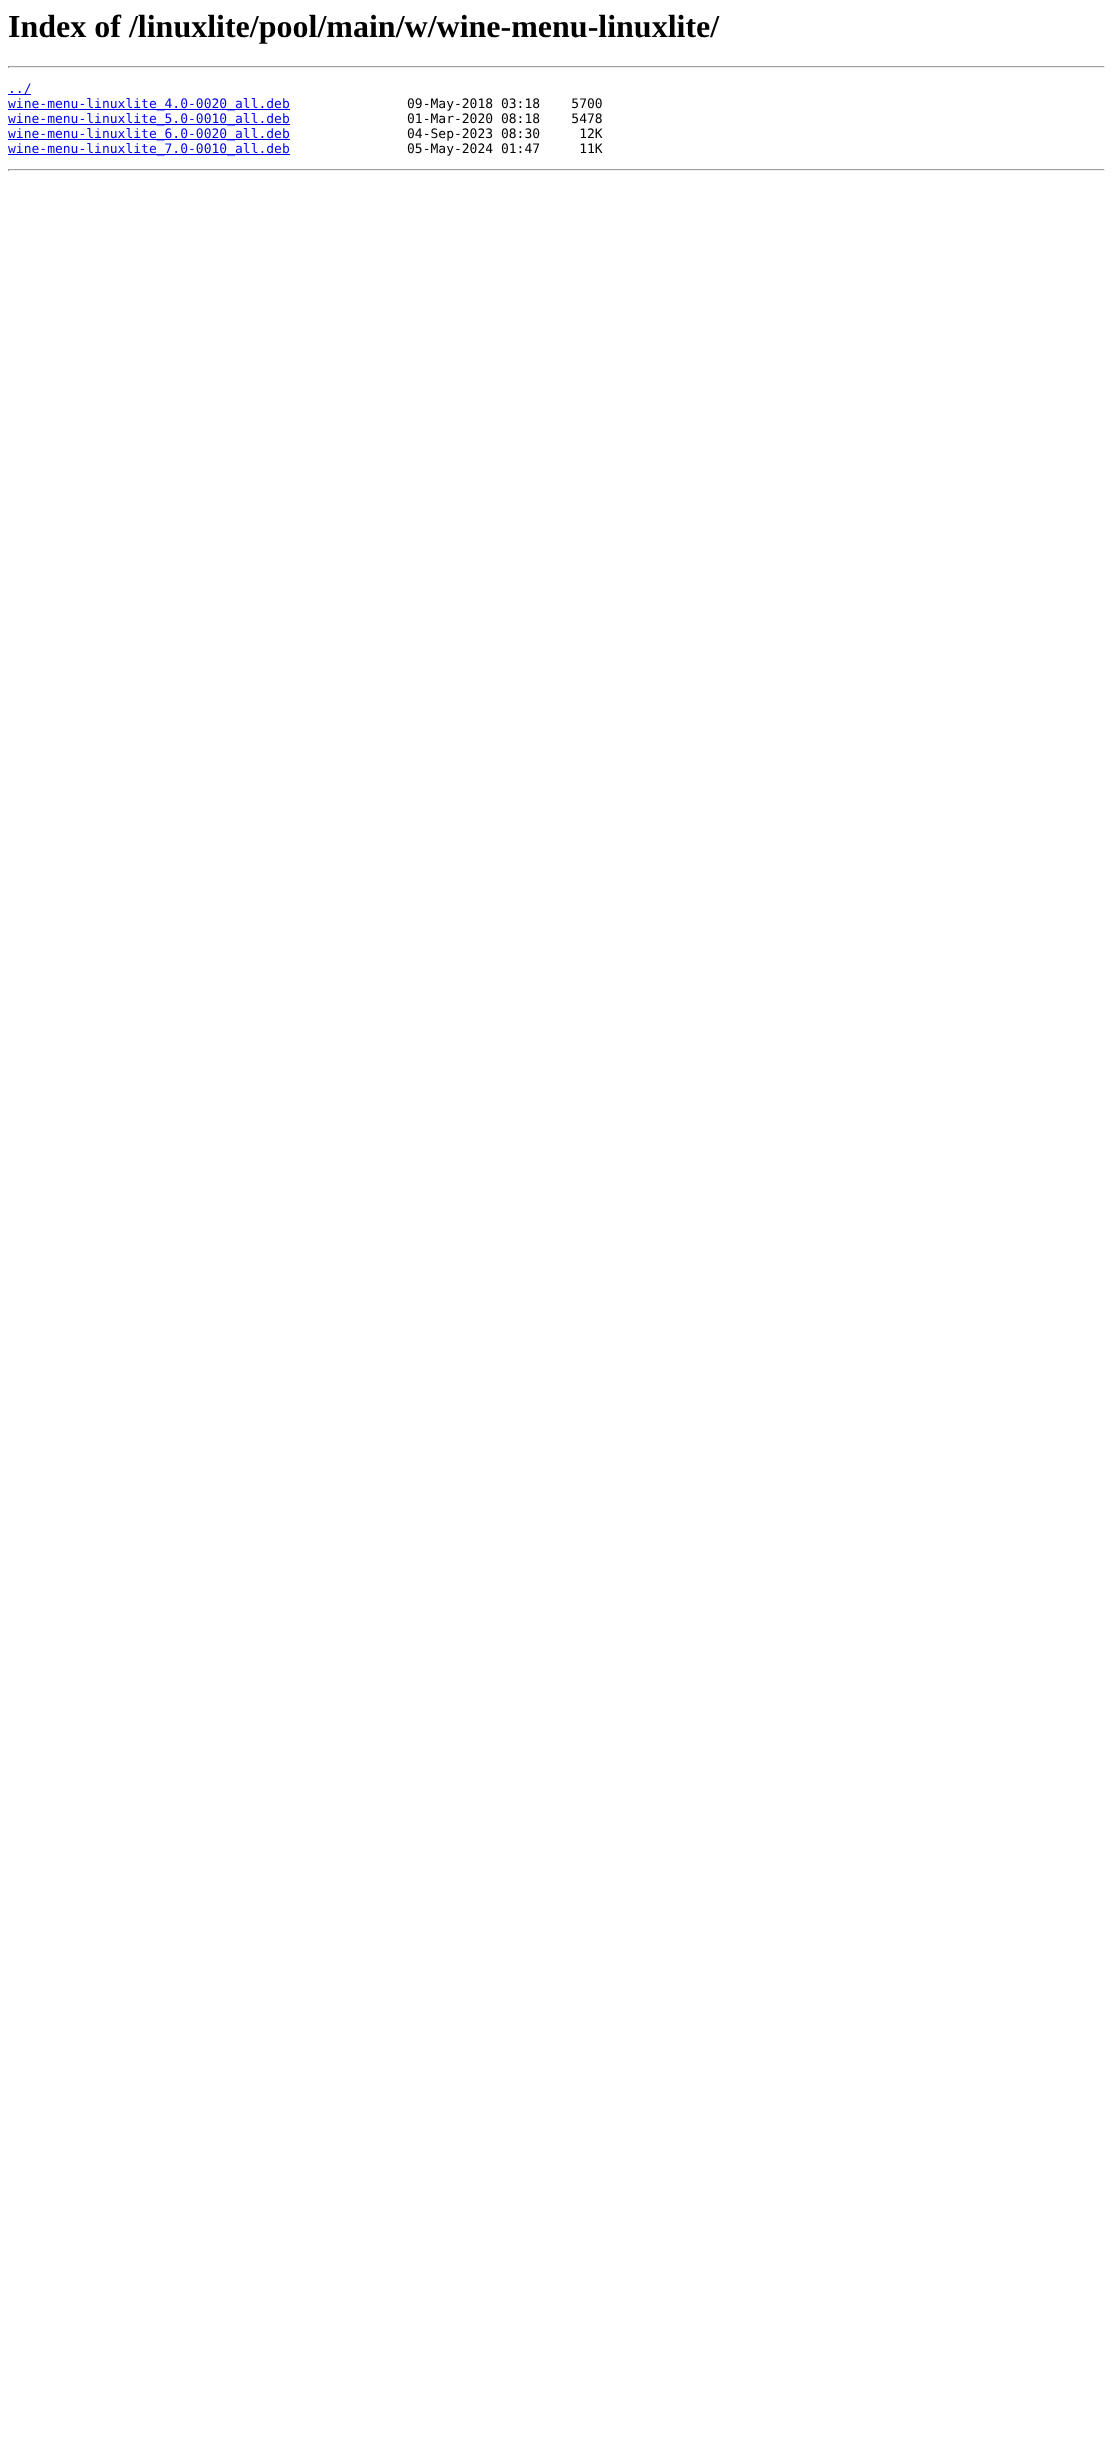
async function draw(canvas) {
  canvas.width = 1113
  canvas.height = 2452
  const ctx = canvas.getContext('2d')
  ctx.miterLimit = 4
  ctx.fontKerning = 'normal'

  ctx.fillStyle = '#fff'
  ctx.fillRect(0, 0, 1113, 2452)
  ctx.font = 'bold 32px Liberation Serif'
  ctx.fillStyle = '#000'
  ctx.fillText('Index of /linuxlite/pool/main/w/wine-menu-linuxlite/', 8, 37)
  ctx.fillStyle = '#9f9f9f'
  ctx.fillRect(8, 66, 1097, 1)
  ctx.fillStyle = '#eee'
  ctx.fillRect(1104, 66, 1, 2)
  ctx.fillRect(8, 67, 1097, 1)
  ctx.fillStyle = '#9f9f9f'
  ctx.fillRect(8, 66, 1, 2)
  ctx.fillStyle = '#00e'
  ctx.fillRect(8, 94, 23, 1)
  ctx.font = '13px DejaVu Sans Mono'
  ctx.fillText('../', 8, 93)
  ctx.fillRect(8, 109, 282, 1)
  ctx.fillText('wine-menu-linuxlite_4.0-0020_all.deb', 8, 108)
  ctx.fillStyle = '#000'
  ctx.fillText('09-May-2018 03:18    5700', 407, 108)
  ctx.fillStyle = '#00e'
  ctx.fillRect(8, 124, 282, 1)
  ctx.fillText('wine-menu-linuxlite_5.0-0010_all.deb', 8, 123)
  ctx.fillStyle = '#000'
  ctx.fillText('01-Mar-2020 08:18    5478', 407, 123)
  ctx.fillStyle = '#00e'
  ctx.fillRect(8, 139, 282, 1)
  ctx.fillText('wine-menu-linuxlite_6.0-0020_all.deb', 8, 138)
  ctx.fillStyle = '#000'
  ctx.fillText('04-Sep-2023 08:30     12K', 407, 138)
  ctx.fillStyle = '#00e'
  ctx.fillRect(8, 154, 282, 1)
  ctx.fillText('wine-menu-linuxlite_7.0-0010_all.deb', 8, 153)
  ctx.fillStyle = '#000'
  ctx.fillText('05-May-2024 01:47     11K', 407, 153)
  ctx.fillStyle = '#9f9f9f'
  ctx.fillRect(8, 169, 1097, 1)
  ctx.fillStyle = '#eee'
  ctx.fillRect(1104, 169, 1, 2)
  ctx.fillRect(8, 170, 1097, 1)
  ctx.fillStyle = '#9f9f9f'
  ctx.fillRect(8, 169, 1, 2)
}

draw(document.querySelector('canvas'))
